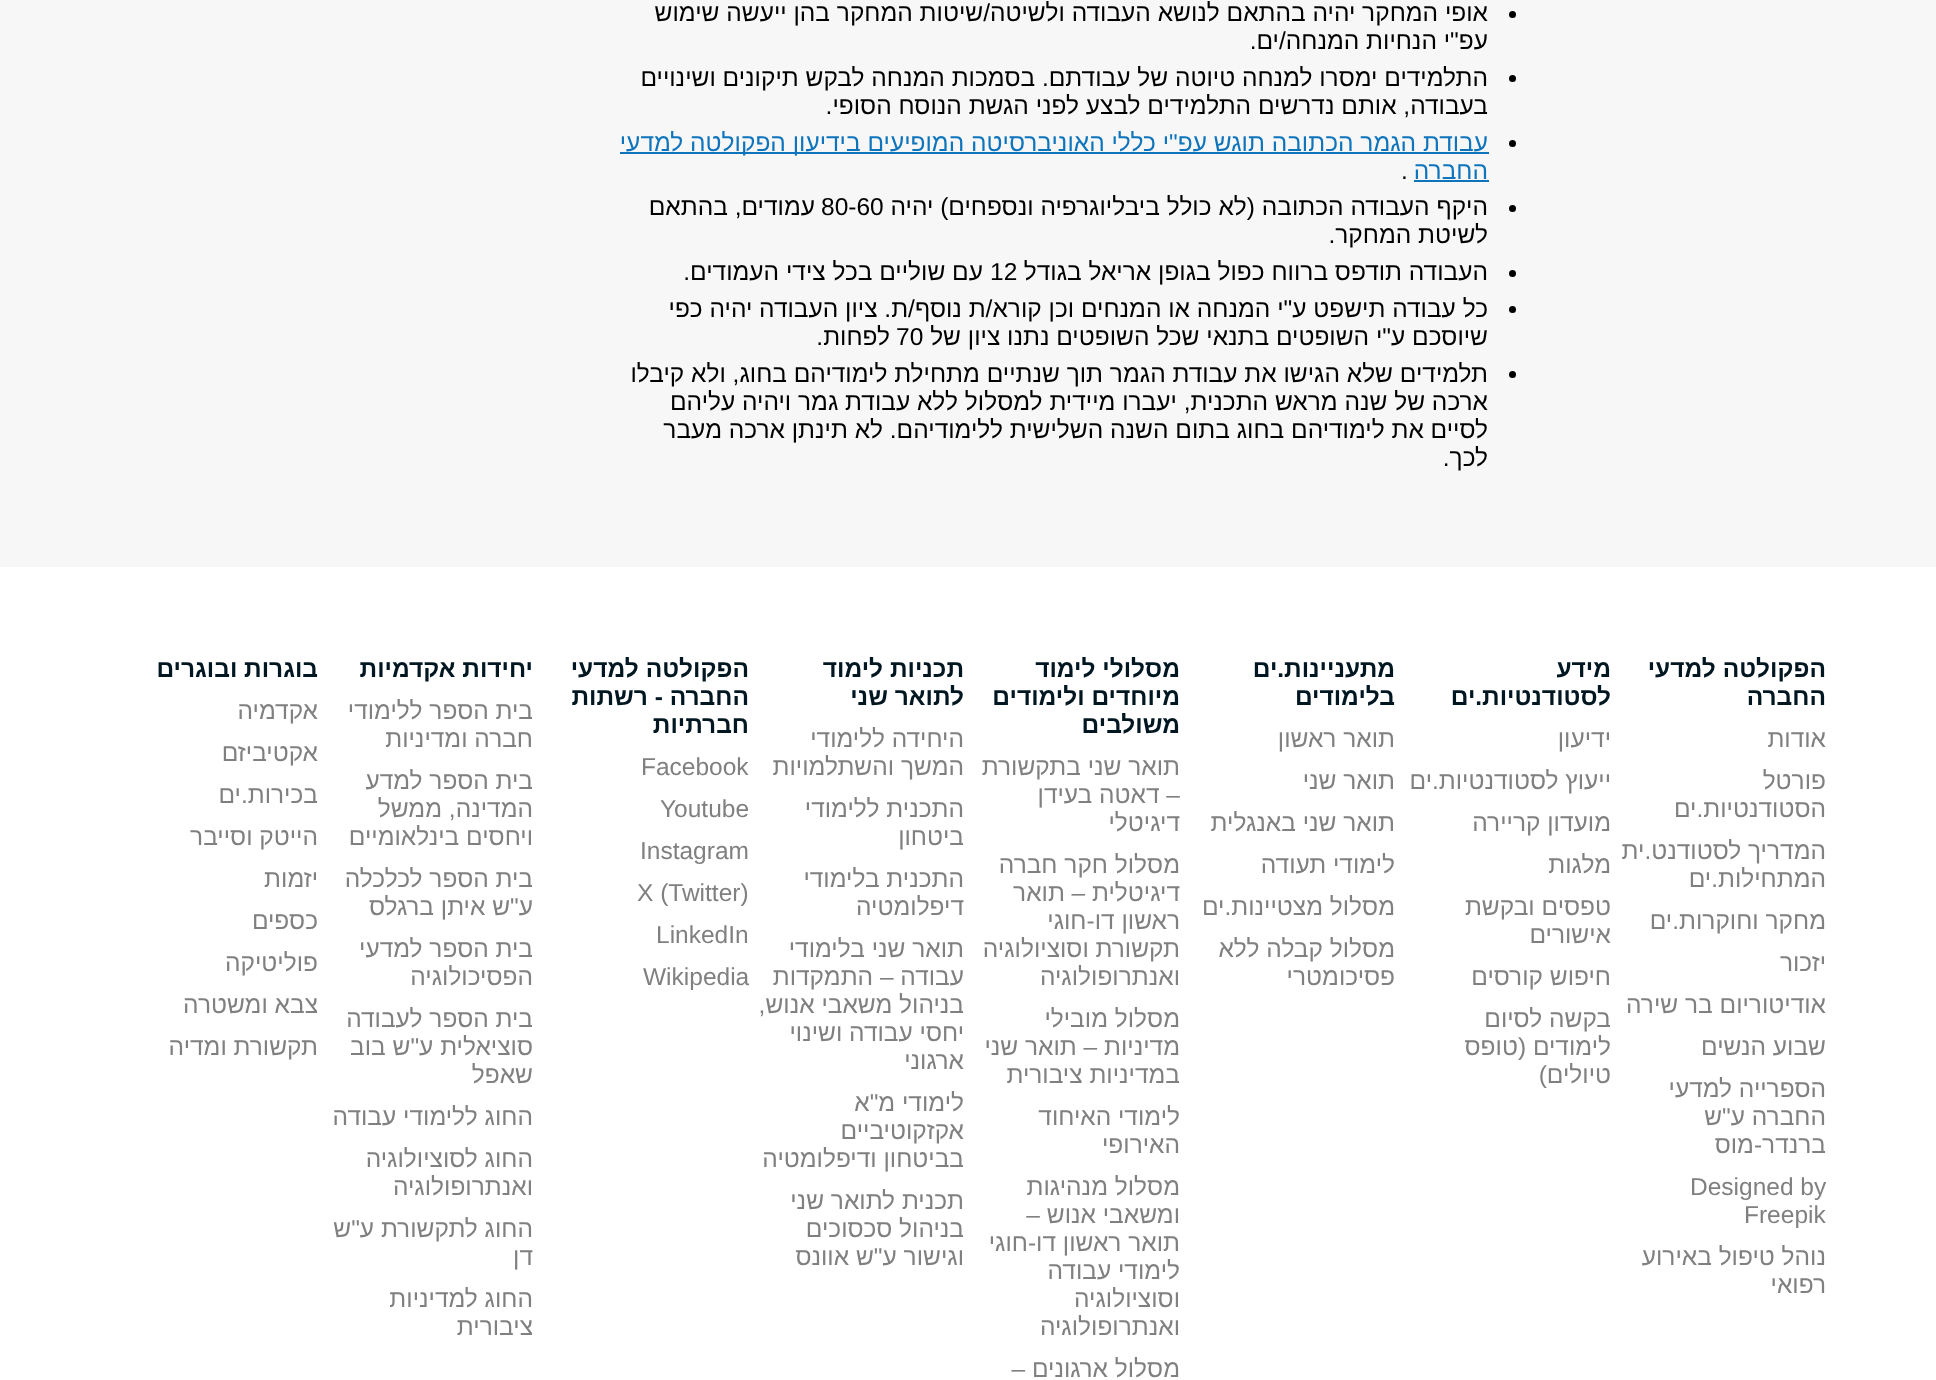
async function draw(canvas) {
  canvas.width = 1936
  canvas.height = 1380
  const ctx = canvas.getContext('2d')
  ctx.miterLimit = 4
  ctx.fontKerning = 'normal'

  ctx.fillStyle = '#f7f7f7'
  ctx.fillRect(0, 0, 1936, 1380)
  ctx.fillStyle = '#000'
  ctx.beginPath()
  ctx.arc(1512.5, 14.5, 3.5, 0, 2 * Math.PI)
  ctx.fill()
  ctx.direction = 'rtl'
  ctx.font = '24.5px Liberation Sans'
  ctx.fillText('אופי המחקר יהיה בהתאם לנושא העבודה ולשיטה/שיטות המחקר בהן ייעשה שימוש', 1488, 21)
  ctx.fillText('עפ"י הנחיות המנחה/ים.', 1488, 49)
  ctx.beginPath()
  ctx.arc(1512.5, 78.5, 3.5, 0, 2 * Math.PI)
  ctx.fill()
  ctx.fillText('התלמידים ימסרו למנחה טיוטה של עבודתם. בסמכות המנחה לבקש תיקונים ושינויים', 1488, 86)
  ctx.fillText('בעבודה, אותם נדרשים התלמידים לבצע לפני הגשת הנוסח הסופי.', 1488, 114)
  ctx.beginPath()
  ctx.arc(1512.5, 143.5, 3.5, 0, 2 * Math.PI)
  ctx.fill()
  ctx.fillStyle = '#0e74bc'
  ctx.fillRect(620, 152, 869, 2)
  ctx.fillText('עבודת הגמר הכתובה תוגש עפ"י כללי האוניברסיטה המופיעים בידיעון הפקולטה למדעי', 1488, 151)
  ctx.fillText('החברה', 1488, 179)
  ctx.fillRect(1414, 180, 75, 2)
  ctx.direction = 'ltr'
  ctx.fillStyle = '#000'
  ctx.fillText('.', 1401, 179)
  ctx.beginPath()
  ctx.arc(1512.5, 208.5, 3.5, 0, 2 * Math.PI)
  ctx.fill()
  ctx.direction = 'rtl'
  ctx.fillText('היקף העבודה הכתובה (לא כולל ביבליוגרפיה ונספחים) יהיה', 1488, 215)
  ctx.direction = 'ltr'
  ctx.fillText('80-60', 821, 215)
  ctx.direction = 'rtl'
  ctx.fillText('עמודים, בהתאם', 815, 215)
  ctx.fillText('לשיטת המחקר.', 1488, 243)
  ctx.beginPath()
  ctx.arc(1512.5, 273.5, 3.5, 0, 2 * Math.PI)
  ctx.fill()
  ctx.fillText('העבודה תודפס ברווח כפול בגופן אריאל בגודל', 1488, 280)
  ctx.direction = 'ltr'
  ctx.fillText('12', 990, 280)
  ctx.direction = 'rtl'
  ctx.fillText('עם שוליים בכל צידי העמודים.', 983, 280)
  ctx.beginPath()
  ctx.arc(1512.5, 309.5, 3.5, 0, 2 * Math.PI)
  ctx.fill()
  ctx.fillText('כל עבודה תישפט ע"י המנחה או המנחים וכן קורא/ת נוסף/ת. ציון העבודה יהיה כפי', 1488, 317)
  ctx.fillText('שיוסכם ע"י השופטים בתנאי שכל השופטים נתנו ציון של', 1488, 345)
  ctx.direction = 'ltr'
  ctx.fillText('70', 896, 345)
  ctx.direction = 'rtl'
  ctx.fillText('לפחות.', 890, 345)
  ctx.beginPath()
  ctx.arc(1512.5, 374.5, 3.5, 0, 2 * Math.PI)
  ctx.fill()
  ctx.fillText('תלמידים שלא הגישו את עבודת הגמר תוך שנתיים מתחילת לימודיהם בחוג, ולא קיבלו', 1488, 382)
  ctx.fillText('ארכה של שנה מראש התכנית, יעברו מיידית למסלול ללא עבודת גמר ויהיה עליהם', 1488, 410)
  ctx.fillText('לסיים את לימודיהם בחוג בתום השנה השלישית ללימודיהם. לא תינתן ארכה מעבר', 1488, 438)
  ctx.fillText('לכך.', 1488, 466)
  ctx.fillStyle = '#fff'
  ctx.fillRect(0, 567, 1936, 813)
  ctx.font = 'bold 24.5px Liberation Sans'
  ctx.fillStyle = '#001721'
  ctx.fillText('הפקולטה למדעי', 1826, 677)
  ctx.fillText('החברה', 1826, 705)
  ctx.font = '24.5px Liberation Sans'
  ctx.fillStyle = '#808080'
  ctx.fillText('אודות', 1826, 747)
  ctx.fillText('פורטל', 1826, 789)
  ctx.fillText('הסטודנטיות.ים', 1826, 817)
  ctx.fillText('המדריך לסטודנט.ית', 1826, 859)
  ctx.fillText('המתחילות.ים', 1826, 887)
  ctx.fillText('מחקר וחוקרות.ים', 1826, 929)
  ctx.fillText('יזכור', 1826, 971)
  ctx.fillText('אודיטוריום בר שירה', 1826, 1013)
  ctx.fillText('שבוע הנשים', 1826, 1055)
  ctx.fillText('הספרייה למדעי', 1826, 1097)
  ctx.fillText('החברה ע"ש', 1826, 1125)
  ctx.fillText('ברנדר-מוס', 1826, 1153)
  ctx.direction = 'ltr'
  ctx.fillText('Designed by', 1690, 1195)
  ctx.fillText('Freepik', 1744, 1223)
  ctx.direction = 'rtl'
  ctx.fillText('נוהל טיפול באירוע', 1826, 1265)
  ctx.fillText('רפואי', 1826, 1293)
  ctx.font = 'bold 24.5px Liberation Sans'
  ctx.fillStyle = '#001721'
  ctx.fillText('מידע', 1611, 677)
  ctx.fillText('לסטודנטיות.ים', 1611, 705)
  ctx.font = '24.5px Liberation Sans'
  ctx.fillStyle = '#808080'
  ctx.fillText('ידיעון', 1611, 747)
  ctx.fillText('ייעוץ לסטודנטיות.ים', 1611, 789)
  ctx.fillText('מועדון קריירה', 1611, 831)
  ctx.fillText('מלגות', 1611, 873)
  ctx.fillText('טפסים ובקשת', 1611, 915)
  ctx.fillText('אישורים', 1611, 943)
  ctx.fillText('חיפוש קורסים', 1611, 985)
  ctx.fillText('בקשה לסיום', 1611, 1027)
  ctx.fillText('לימודים (טופס', 1611, 1055)
  ctx.fillText('טיולים)', 1611, 1083)
  ctx.font = 'bold 24.5px Liberation Sans'
  ctx.fillStyle = '#001721'
  ctx.fillText('מתעניינות.ים', 1395, 677)
  ctx.fillText('בלימודים', 1395, 705)
  ctx.font = '24.5px Liberation Sans'
  ctx.fillStyle = '#808080'
  ctx.fillText('תואר ראשון', 1395, 747)
  ctx.fillText('תואר שני', 1395, 789)
  ctx.fillText('תואר שני באנגלית', 1395, 831)
  ctx.fillText('לימודי תעודה', 1395, 873)
  ctx.fillText('מסלול מצטיינות.ים', 1395, 915)
  ctx.fillText('מסלול קבלה ללא', 1395, 957)
  ctx.fillText('פסיכומטרי', 1395, 985)
  ctx.font = 'bold 24.5px Liberation Sans'
  ctx.fillStyle = '#001721'
  ctx.fillText('מסלולי לימוד', 1180, 677)
  ctx.fillText('מיוחדים ולימודים', 1180, 705)
  ctx.fillText('משולבים', 1180, 733)
  ctx.font = '24.5px Liberation Sans'
  ctx.fillStyle = '#808080'
  ctx.fillText('תואר שני בתקשורת', 1180, 775)
  ctx.fillText('– דאטה בעידן', 1180, 803)
  ctx.fillText('דיגיטלי', 1180, 831)
  ctx.fillText('מסלול חקר חברה', 1180, 873)
  ctx.fillText('דיגיטלית – תואר', 1180, 901)
  ctx.fillText('ראשון דו-חוגי', 1180, 929)
  ctx.fillText('תקשורת וסוציולוגיה', 1180, 957)
  ctx.fillText('ואנתרופולוגיה', 1180, 985)
  ctx.fillText('מסלול מובילי', 1180, 1027)
  ctx.fillText('מדיניות – תואר שני', 1180, 1055)
  ctx.fillText('במדיניות ציבורית', 1180, 1083)
  ctx.fillText('לימודי האיחוד', 1180, 1125)
  ctx.fillText('האירופי', 1180, 1153)
  ctx.fillText('מסלול מנהיגות', 1180, 1195)
  ctx.fillText('ומשאבי אנוש –', 1180, 1223)
  ctx.fillText('תואר ראשון דו-חוגי', 1180, 1251)
  ctx.fillText('לימודי עבודה', 1180, 1279)
  ctx.fillText('וסוציולוגיה', 1180, 1307)
  ctx.fillText('ואנתרופולוגיה', 1180, 1335)
  ctx.fillText('מסלול ארגונים –', 1180, 1377)
  ctx.font = 'bold 24.5px Liberation Sans'
  ctx.fillStyle = '#001721'
  ctx.fillText('תכניות לימוד', 964, 677)
  ctx.fillText('לתואר שני', 964, 705)
  ctx.font = '24.5px Liberation Sans'
  ctx.fillStyle = '#808080'
  ctx.fillText('היחידה ללימודי', 964, 747)
  ctx.fillText('המשך והשתלמויות', 964, 775)
  ctx.fillText('התכנית ללימודי', 964, 817)
  ctx.fillText('ביטחון', 964, 845)
  ctx.fillText('התכנית בלימודי', 964, 887)
  ctx.fillText('דיפלומטיה', 964, 915)
  ctx.fillText('תואר שני בלימודי', 964, 957)
  ctx.fillText('עבודה – התמקדות', 964, 985)
  ctx.fillText('בניהול משאבי אנוש,', 964, 1013)
  ctx.fillText('יחסי עבודה ושינוי', 964, 1041)
  ctx.fillText('ארגוני', 964, 1069)
  ctx.fillText('לימודי מ"א', 964, 1111)
  ctx.fillText('אקזקוטיביים', 964, 1139)
  ctx.fillText('בביטחון ודיפלומטיה', 964, 1167)
  ctx.fillText('תכנית לתואר שני', 964, 1209)
  ctx.fillText('בניהול סכסוכים', 964, 1237)
  ctx.fillText('וגישור ע"ש אוונס', 964, 1265)
  ctx.font = 'bold 24.5px Liberation Sans'
  ctx.fillStyle = '#001721'
  ctx.fillText('הפקולטה למדעי', 749, 677)
  ctx.fillText('החברה - רשתות', 749, 705)
  ctx.fillText('חברתיות', 749, 733)
  ctx.direction = 'ltr'
  ctx.font = '24.5px Liberation Sans'
  ctx.fillStyle = '#808080'
  ctx.fillText('Facebook', 641, 775)
  ctx.fillText('Youtube', 660, 817)
  ctx.fillText('Instagram', 640, 859)
  ctx.fillText('X (Twitter)', 637, 901)
  ctx.fillText('LinkedIn', 656, 943)
  ctx.fillText('Wikipedia', 643, 985)
  ctx.direction = 'rtl'
  ctx.font = 'bold 24.5px Liberation Sans'
  ctx.fillStyle = '#001721'
  ctx.fillText('יחידות אקדמיות', 533, 677)
  ctx.font = '24.5px Liberation Sans'
  ctx.fillStyle = '#808080'
  ctx.fillText('בית הספר ללימודי', 533, 719)
  ctx.fillText('חברה ומדיניות', 533, 747)
  ctx.fillText('בית הספר למדע', 533, 789)
  ctx.fillText('המדינה, ממשל', 533, 817)
  ctx.fillText('ויחסים בינלאומיים', 533, 845)
  ctx.fillText('בית הספר לכלכלה', 533, 887)
  ctx.fillText('ע"ש איתן ברגלס', 533, 915)
  ctx.fillText('בית הספר למדעי', 533, 957)
  ctx.fillText('הפסיכולוגיה', 533, 985)
  ctx.fillText('בית הספר לעבודה', 533, 1027)
  ctx.fillText('סוציאלית ע"ש בוב', 533, 1055)
  ctx.fillText('שאפל', 533, 1083)
  ctx.fillText('החוג ללימודי עבודה', 533, 1125)
  ctx.fillText('החוג לסוציולוגיה', 533, 1167)
  ctx.fillText('ואנתרופולוגיה', 533, 1195)
  ctx.fillText('החוג לתקשורת ע"ש', 533, 1237)
  ctx.fillText('דן', 533, 1265)
  ctx.fillText('החוג למדיניות', 533, 1307)
  ctx.fillText('ציבורית', 533, 1335)
  ctx.font = 'bold 24.5px Liberation Sans'
  ctx.fillStyle = '#001721'
  ctx.fillText('בוגרות ובוגרים', 318, 677)
  ctx.font = '24.5px Liberation Sans'
  ctx.fillStyle = '#808080'
  ctx.fillText('אקדמיה', 318, 719)
  ctx.fillText('אקטיביזם', 318, 761)
  ctx.fillText('בכירות.ים', 318, 803)
  ctx.fillText('הייטק וסייבר', 318, 845)
  ctx.fillText('יזמות', 318, 887)
  ctx.fillText('כספים', 318, 929)
  ctx.fillText('פוליטיקה', 318, 971)
  ctx.fillText('צבא ומשטרה', 318, 1013)
  ctx.fillText('תקשורת ומדיה', 318, 1055)
}

draw(document.querySelector('canvas'))
